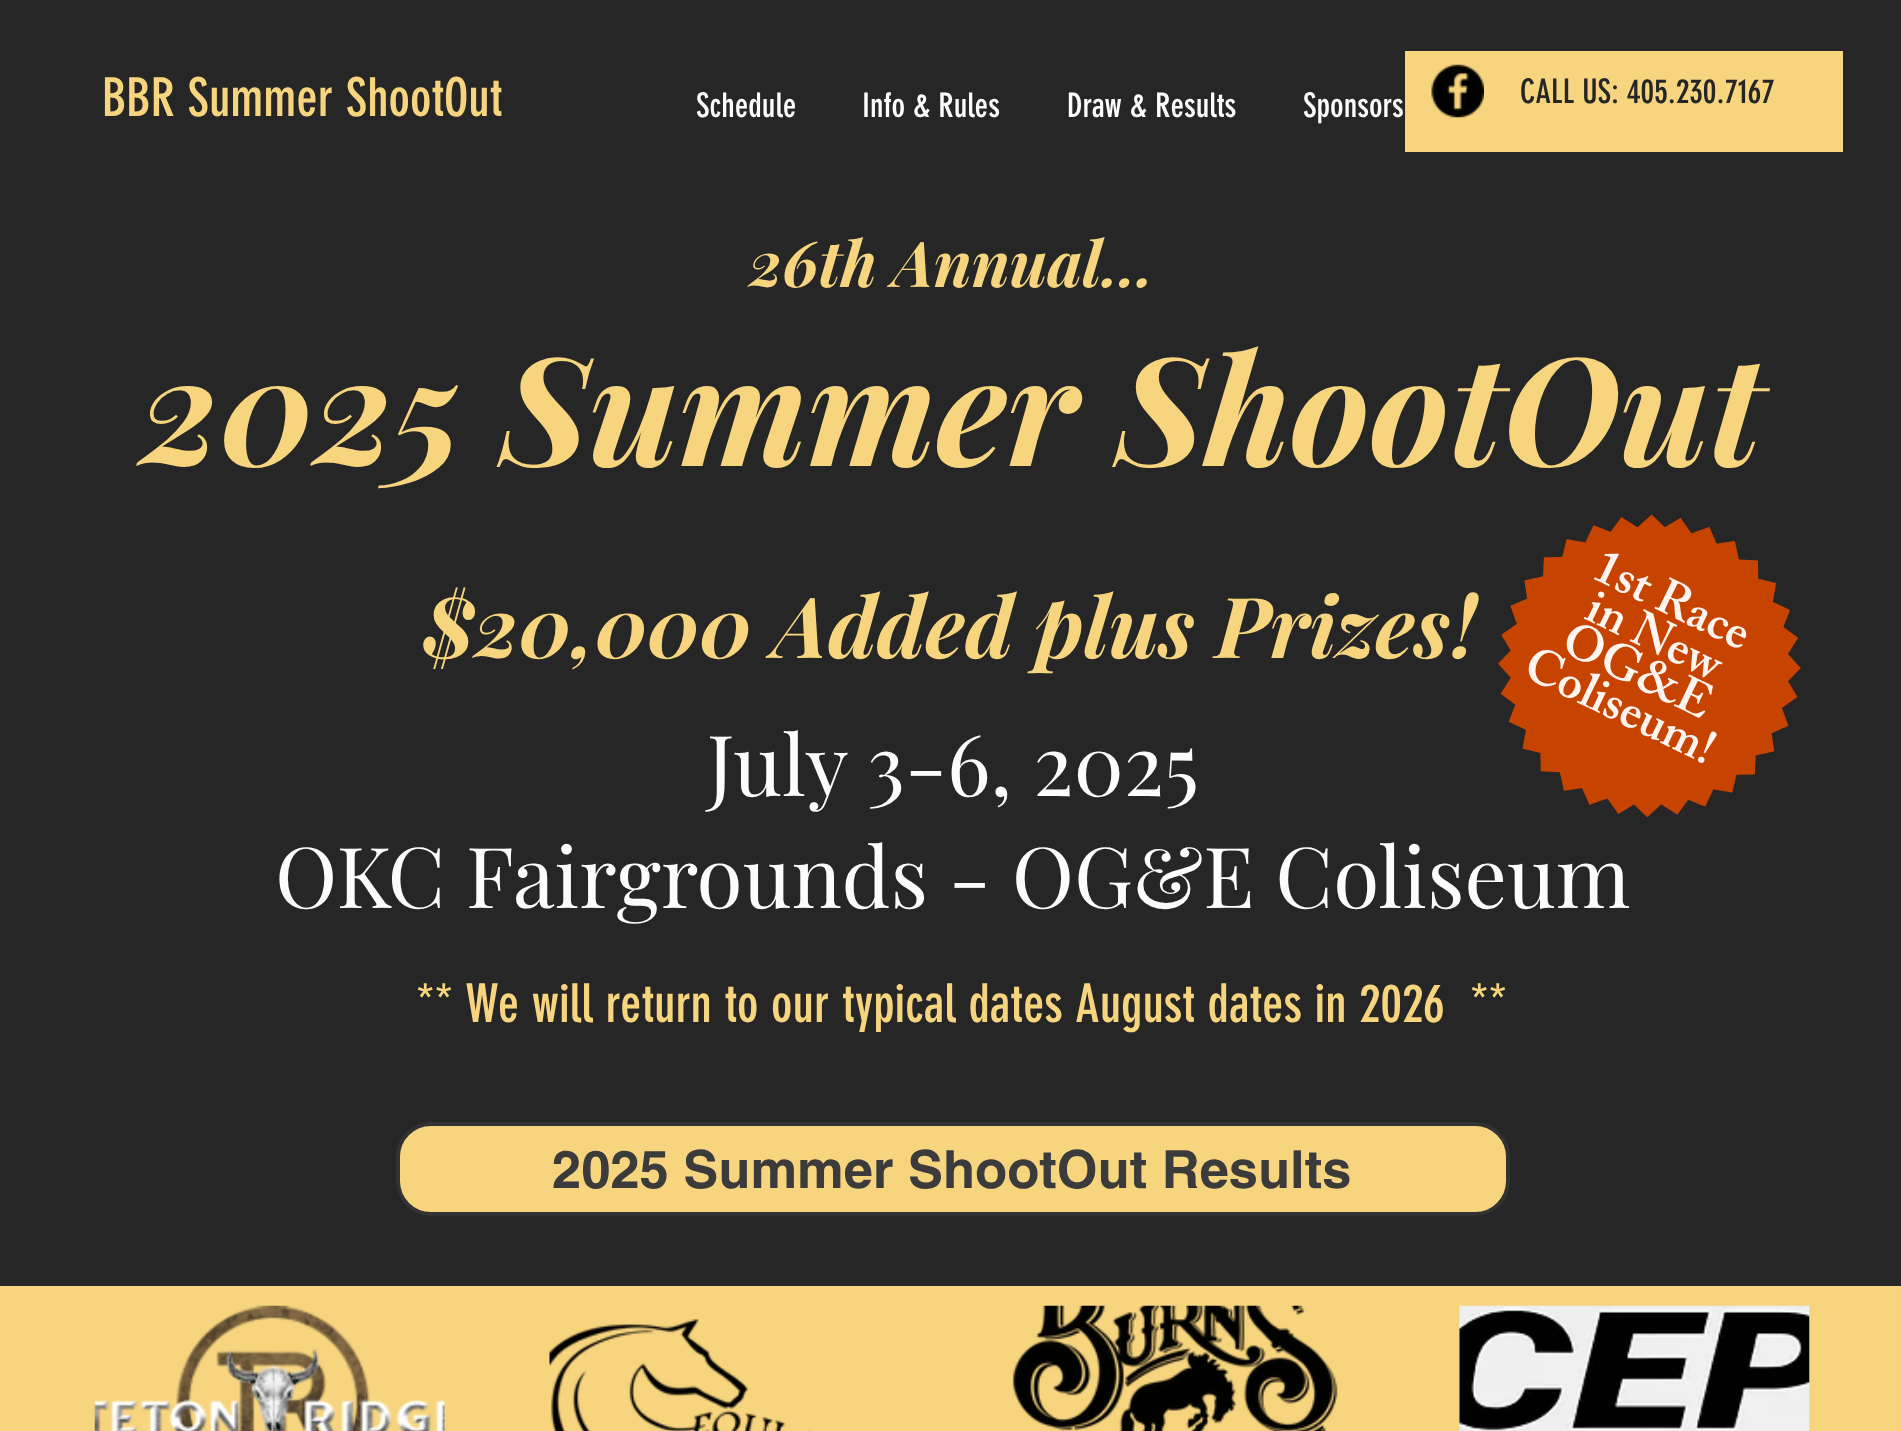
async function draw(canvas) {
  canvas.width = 1901
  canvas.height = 1431
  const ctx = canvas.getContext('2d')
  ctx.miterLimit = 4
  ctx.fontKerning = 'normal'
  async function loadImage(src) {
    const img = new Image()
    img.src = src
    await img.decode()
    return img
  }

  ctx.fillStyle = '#262626'
  ctx.fillRect(0, 0, 1901, 1431)
  ctx.font = '52.5px "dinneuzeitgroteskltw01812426"'
  ctx.fillStyle = '#f7d57f'
  ctx.fillText('BBR Summer ShootOut', 102, 116)
  ctx.font = '33.25px "dinneuzeitgroteskltw01812426"'
  ctx.fillStyle = '#fcfcfc'
  ctx.fillText('Schedule', 696, 117)
  ctx.fillText('Info & Rules', 862, 117)
  ctx.fillText('Draw & Results', 1067, 117)
  ctx.fillText('Sponsors', 1303, 117)
  ctx.fillStyle = '#f7d57f'
  ctx.fillRect(1405, 51, 438, 101)
  ctx.drawImage(await loadImage('image0.png'), 1431, 64, 53, 54)
  ctx.fillStyle = '#262626'
  ctx.fillText('CALL US: 405.230.7167', 1520, 103)
  ctx.font = 'italic bold 63px Playfair Display'
  ctx.fillStyle = '#f7d57f'
  ctx.fillText('26th Annual...', 749, 287)
  ctx.font = 'italic bold 150.5px Playfair Display'
  ctx.fillText('2025 Summer ShootOut', 140, 466)
  ctx.font = 'italic bold 84px Playfair Display'
  ctx.fillText('$20,000 Added plus Prizes!', 423, 658)
  ctx.drawImage(await loadImage('image1.png'), 1498, 514, 303, 304)
  ctx.font = '600 49px "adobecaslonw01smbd"'
  ctx.fillStyle = '#fff5f0'
  ctx.save()
  ctx.translate(1590, 577)
  ctx.rotate(25.9 * Math.PI / 180)
  ctx.fillText('1st Race', 0, 0)
  ctx.restore()
  ctx.save()
  ctx.translate(1583, 618)
  ctx.rotate(25.9 * Math.PI / 180)
  ctx.fillText('in', 0, 0)
  ctx.restore()
  ctx.save()
  ctx.translate(1628, 640)
  ctx.rotate(25.9 * Math.PI / 180)
  ctx.fillText('New', 0, 0)
  ctx.restore()
  ctx.save()
  ctx.translate(1559, 650)
  ctx.rotate(25.9 * Math.PI / 180)
  ctx.fillText('OG&E', 0, 0)
  ctx.restore()
  ctx.save()
  ctx.translate(1521, 675)
  ctx.rotate(25.9 * Math.PI / 180)
  ctx.fillText('Coliseum!', 0, 0)
  ctx.restore()
  ctx.font = '84px Playfair Display'
  ctx.fillStyle = '#fcfcfc'
  ctx.fillText('July 3-6, 2025', 707, 796)
  ctx.fillText('OKC Fairgrounds - OG&E Coliseum', 275, 908)
  ctx.font = '52.5px "dinneuzeitgroteskltw01812426"'
  ctx.fillStyle = '#f7d57f'
  ctx.fillText('** We will return to our typical dates August dates in 2026  **', 416, 1022)
  ctx.beginPath()
  ctx.roundRect(398, 1124, 1110, 90, 33)
  ctx.fill()
  ctx.strokeStyle = '#323232'
  ctx.lineWidth = 4
  ctx.stroke()
  ctx.font = 'bold 52.5px helvetica'
  ctx.fillStyle = '#3b3b3b'
  ctx.fillText('2025 Summer ShootOut Results', 552, 1188)
  ctx.fillStyle = '#f7d57f'
  ctx.fillRect(0, 1286, 1901, 145)
  ctx.drawImage(await loadImage('image2.png'), 94, 1305, 351, 126)
  ctx.drawImage(await loadImage('image3.png'), 549, 1318, 263, 113)
  ctx.drawImage(await loadImage('image4.png'), 1012, 1305, 326, 126)
  ctx.drawImage(await loadImage('image5.png'), 1459, 1305, 351, 126)
}

draw(document.querySelector('canvas'))
